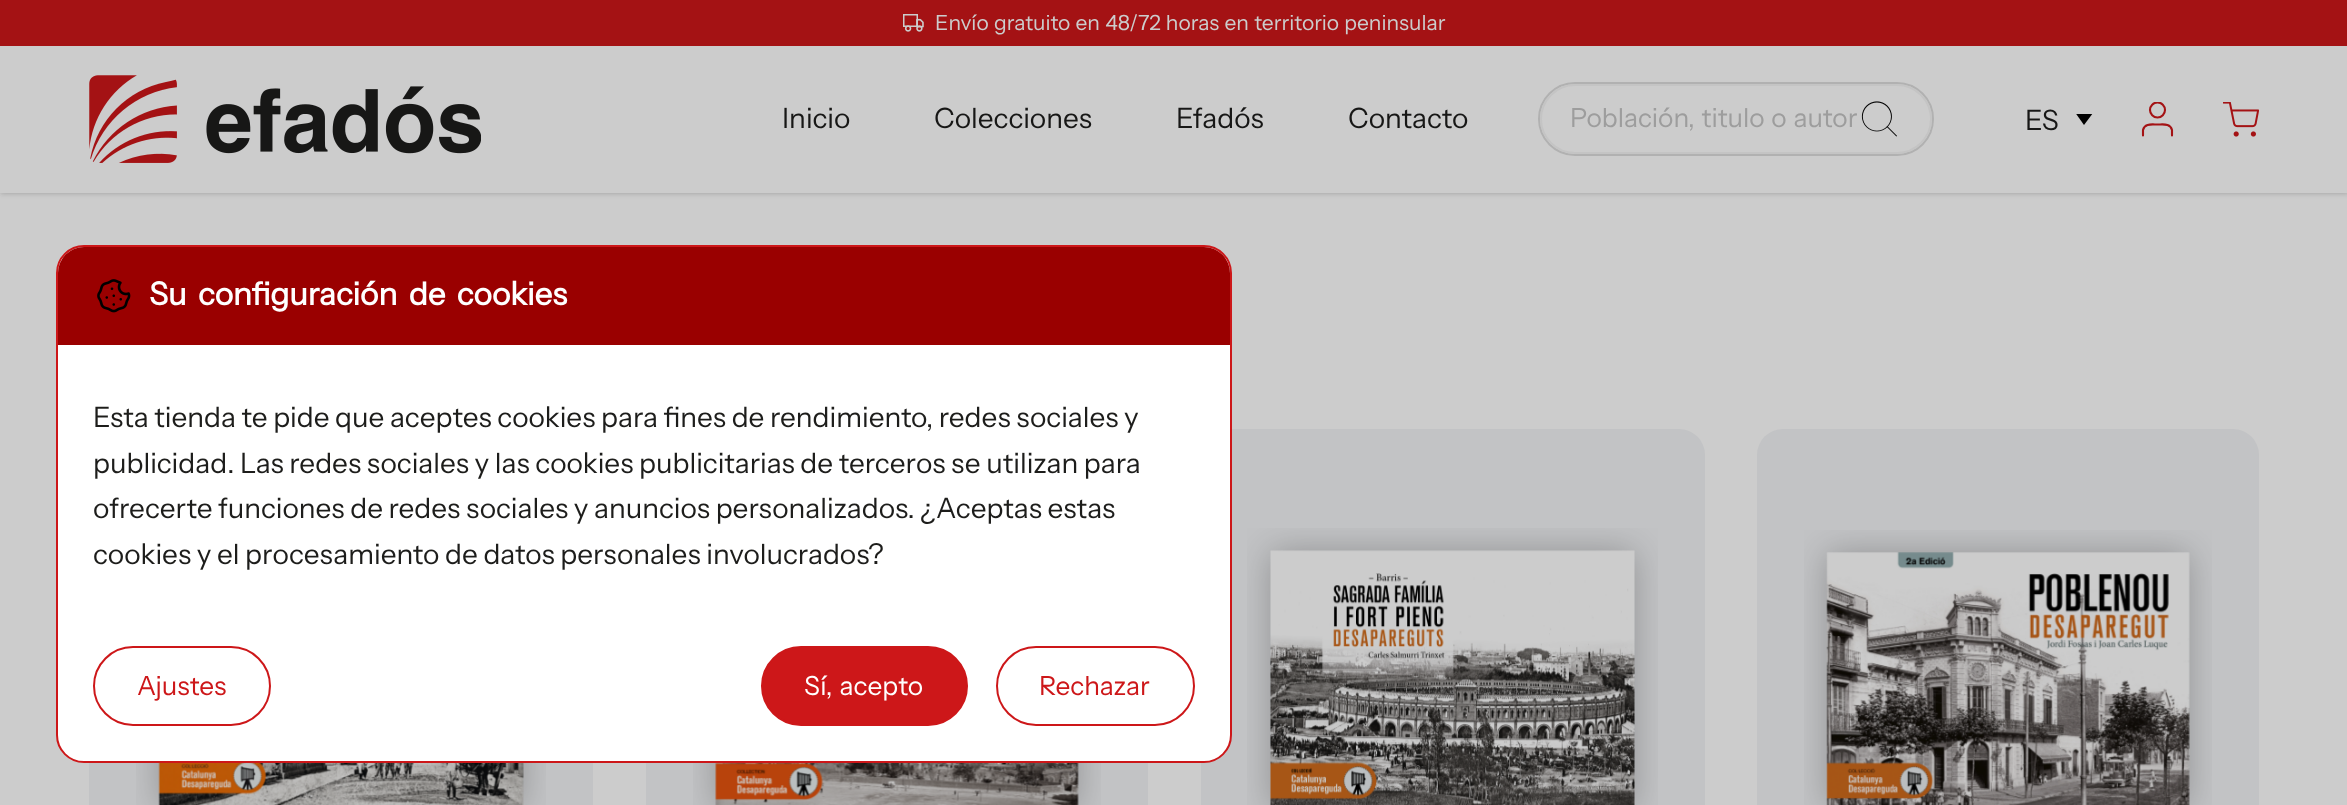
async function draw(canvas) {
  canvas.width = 2347
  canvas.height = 805
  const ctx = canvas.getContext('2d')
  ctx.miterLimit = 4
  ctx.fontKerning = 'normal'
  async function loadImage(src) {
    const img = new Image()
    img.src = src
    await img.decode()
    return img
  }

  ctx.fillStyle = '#ccc'
  ctx.fillRect(0, 0, 2347, 805)
  ctx.fillStyle = '#0000001a'
  ctx.filter = 'blur(2px)'
  ctx.beginPath()
  ctx.rect(2, 4, 2345, 189)
  ctx.fill()
  ctx.filter = 'none'
  ctx.filter = 'blur(2.5px)'
  ctx.beginPath()
  ctx.rect(0, 2, 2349, 192)
  ctx.fill()
  ctx.filter = 'none'
  ctx.fillStyle = '#ccc'
  ctx.fillRect(0, 46, 2347, 147)
  ctx.fillStyle = '#a41214'
  ctx.fillRect(0, 0, 2347, 46)
  ctx.drawImage(await loadImage('image0.png'), 903, 14, 21, 18)
  ctx.wordSpacing = '1px'
  ctx.font = '21px Instrument Sans'
  ctx.fillStyle = '#ccc'
  ctx.fillText('Envío gratuito en 48/72 horas en territorio peninsular', 935, 30)
  ctx.drawImage(await loadImage('image1.png'), 89, 75, 392, 88)
  ctx.wordSpacing = '0px'
  ctx.font = '28px Instrument Sans'
  ctx.fillStyle = '#171716'
  ctx.fillText('Inicio', 782, 128)
  ctx.fillText('Colecciones', 934, 128)
  ctx.fillText('Efadós', 1176, 128)
  ctx.fillText('Contacto', 1348, 128)
  ctx.beginPath()
  ctx.roundRect(1539, 83, 394, 72, 36)
  ctx.strokeStyle = '#b1b1b1'
  ctx.lineWidth = 2
  ctx.stroke()
  ctx.fillStyle = '#ccc'
  ctx.beginPath()
  ctx.roundRect(1541, 85, 390, 68, 34)
  ctx.fill()
  ctx.strokeStyle = '#c4c4c4'
  ctx.stroke()
  ctx.wordSpacing = '1.5px'
  ctx.font = '26.25px Instrument Sans'
  ctx.fillStyle = '#9d9d9d'
  ctx.fillText('Población, titulo o autor', 1570, 127)
  ctx.drawImage(await loadImage('image2.png'), 1861, 101, 36, 36)
  ctx.wordSpacing = '0px'
  ctx.font = '28px Instrument Sans'
  ctx.fillStyle = '#171716'
  ctx.fillText('ES', 2025, 130)
  ctx.save()
  ctx.beginPath()
  ctx.rect(2076, 114, 17, 12)
  ctx.clip()
  ctx.fillStyle = '#000'
  ctx.beginPath()
  ctx.moveTo(2084, 125)
  ctx.lineTo(2075.5, 113)
  ctx.lineTo(2093, 113)
  ctx.closePath()
  ctx.fill()
  ctx.restore()
  ctx.beginPath()
  ctx.moveTo(2172, 135.5)
  ctx.lineTo(2172, 130)
  ctx.bezierCurveTo(2170.5, 123, 2163, 124.5, 2157.5, 124.5)
  ctx.bezierCurveTo(2152, 124.5, 2144.5, 123, 2143, 130)
  ctx.lineTo(2143, 135.5)
  ctx.strokeStyle = '#a41214'
  ctx.lineWidth = 2.1
  ctx.lineCap = 'round'
  ctx.lineJoin = 'round'
  ctx.stroke()
  ctx.save()
  ctx.beginPath()
  ctx.rect(2142, 102, 32, 35)
  ctx.clip()
  ctx.beginPath()
  ctx.arc(2157.5, 110, 7.5, 0, 2 * Math.PI)
  ctx.stroke()
  ctx.restore()
  ctx.drawImage(await loadImage('image3.png'), 2223, 102, 36, 35)
  ctx.fillStyle = '#c2c3c5'
  ctx.beginPath()
  ctx.roundRect(1201, 429, 504, 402, 26)
  ctx.fill()
  ctx.fillStyle = '#fff'
  ctx.beginPath()
  ctx.roundRect(57, 246, 1174, 516, 27)
  ctx.fill()
  ctx.strokeStyle = '#cd1719'
  ctx.lineWidth = 2
  ctx.lineJoin = 'miter'
  ctx.stroke()
  ctx.fillStyle = '#9a0000'
  ctx.beginPath()
  ctx.roundRect(58, 247, 1172, 98, [26, 26, 0, 0])
  ctx.fill()
  ctx.drawImage(await loadImage('image4.png'), 97, 279, 34, 34)
  ctx.wordSpacing = '5px'
  ctx.font = 'bold 31.5px Instrument Sans'
  ctx.fillStyle = '#fff'
  ctx.fillText('Su configuración de cookies', 149, 305)
  ctx.wordSpacing = '0px'
  ctx.font = '28px Instrument Sans'
  ctx.fillStyle = '#1d1d1b'
  ctx.fillText('Esta tienda te pide que aceptes cookies para fines de rendimiento, redes sociales y', 93, 427)
  ctx.fillText('publicidad. Las redes sociales y las cookies publicitarias de terceros se utilizan para', 93, 473)
  ctx.fillText('ofrecerte funciones de redes sociales y anuncios personalizados. ¿Aceptas estas', 93, 518)
  ctx.fillText('cookies y el procesamiento de datos personales involucrados?', 93, 564)
  ctx.beginPath()
  ctx.roundRect(94, 647, 176, 78, 39)
  ctx.stroke()
  ctx.font = '26.25px Instrument Sans'
  ctx.fillStyle = '#cd1719'
  ctx.fillText('Ajustes', 137, 695)
  ctx.beginPath()
  ctx.roundRect(762, 647, 205, 78, 39)
  ctx.fill()
  ctx.stroke()
  ctx.wordSpacing = '2px'
  ctx.fillStyle = '#fff'
  ctx.fillText('Sí, acepto', 804, 695)
  ctx.beginPath()
  ctx.roundRect(997, 647, 197, 78, 39)
  ctx.stroke()
  ctx.wordSpacing = '0px'
  ctx.fillStyle = '#cd1719'
  ctx.fillText('Rechazar', 1039, 695)
  ctx.fillStyle = '#c2c3c5'
  ctx.fillRect(89, 763, 504, 42)
  ctx.drawImage(await loadImage('image5.png'), 136, 763, 410, 42)
  ctx.fillRect(646, 763, 502, 42)
  ctx.drawImage(await loadImage('image6.png'), 693, 763, 408, 42)
  ctx.drawImage(await loadImage('image7.png'), 1247, 528, 411, 277)
  ctx.beginPath()
  ctx.roundRect(1757, 429, 502, 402, 26)
  ctx.fill()
  ctx.drawImage(await loadImage('image8.png'), 1804, 530, 408, 275)
}

draw(document.querySelector('canvas'))
